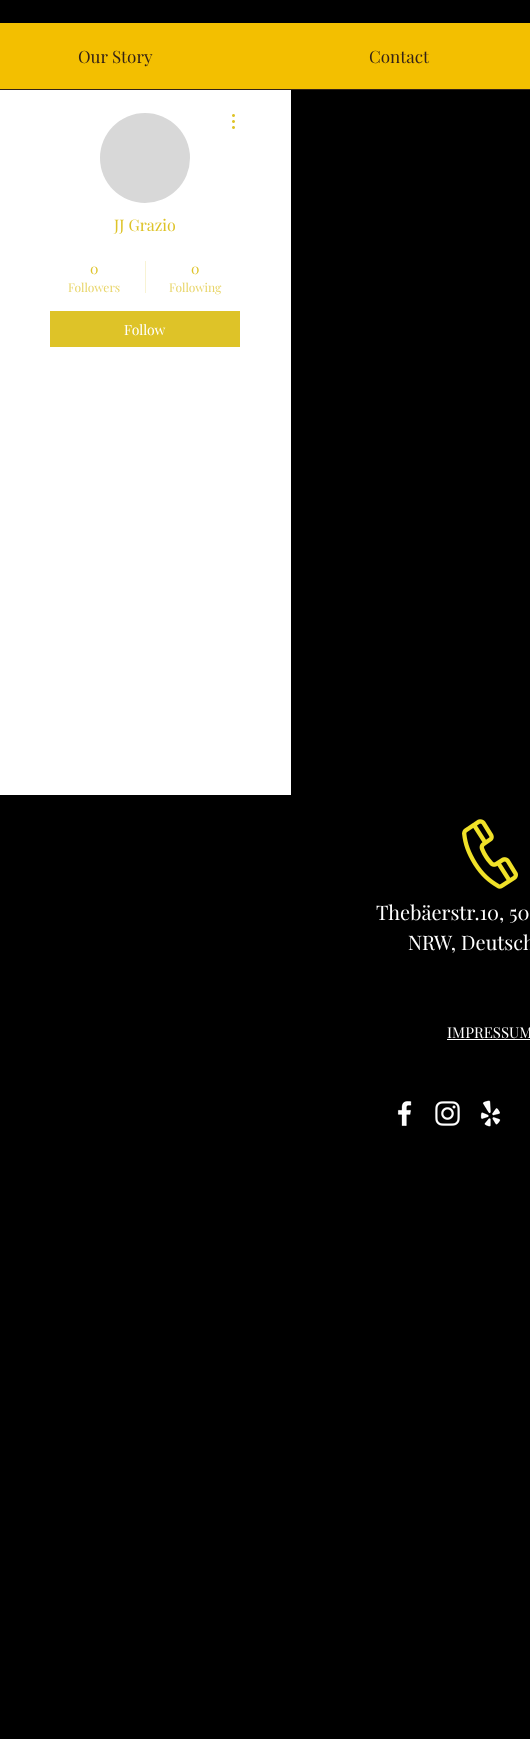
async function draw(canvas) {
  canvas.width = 530
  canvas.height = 1739
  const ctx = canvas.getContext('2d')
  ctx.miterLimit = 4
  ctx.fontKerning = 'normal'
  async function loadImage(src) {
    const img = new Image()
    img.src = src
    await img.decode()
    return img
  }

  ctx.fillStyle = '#000'
  ctx.fillRect(0, 0, 530, 1739)
  ctx.fillStyle = '#f3bf00'
  ctx.fillRect(0, 23, 530, 66)
  ctx.fillStyle = '#342216'
  ctx.fillRect(0, 89, 530, 1)
  ctx.font = '17px Playfair Display'
  ctx.fillText('Our Story', 78, 63)
  ctx.fillText('Contact', 369, 63)
  ctx.fillStyle = '#fff'
  ctx.fillRect(0, 90, 291, 705)
  ctx.fillStyle = '#d8d8d8'
  ctx.beginPath()
  ctx.arc(145, 158, 45, 0, 2 * Math.PI)
  ctx.fill()
  ctx.drawImage(await loadImage('image0.png'), 232, 114, 3, 15)
  ctx.font = '16px Playfair Display'
  ctx.fillStyle = '#dec328'
  ctx.fillText('JJ Grazio', 114, 231)
  ctx.font = '14px Playfair Display'
  ctx.fillText('0', 90, 274)
  ctx.font = '12px Playfair Display'
  ctx.fillStyle = '#e8d569'
  ctx.fillText('Followers', 68, 292)
  ctx.fillStyle = '#f8f3d4'
  ctx.fillRect(145, 261, 1, 32)
  ctx.font = '14px Playfair Display'
  ctx.fillStyle = '#dec328'
  ctx.fillText('0', 191, 274)
  ctx.font = '12px Playfair Display'
  ctx.fillStyle = '#e8d569'
  ctx.fillText('Following', 169, 292)
  ctx.fillStyle = '#dec328'
  ctx.fillRect(50, 311, 190, 36)
  ctx.font = '14px Playfair Display'
  ctx.fillStyle = '#fff'
  ctx.fillText('Follow', 124, 335)
  ctx.drawImage(await loadImage('image1.png'), 462, 819, 56, 70)
  ctx.font = '20px Playfair Display'
  ctx.fillText('Thebäerstr.10, 50', 376, 920)
  ctx.fillText('NRW, Deutsch', 408, 950)
  ctx.font = '15px Playfair Display'
  ctx.fillText('IMPRESSUM', 447, 1038)
  ctx.fillRect(447, 1039, 83, 1)
  ctx.drawImage(await loadImage('image2.png'), 397, 1101, 15, 25)
  ctx.drawImage(await loadImage('image3.png'), 435, 1101, 25, 25)
  ctx.drawImage(await loadImage('image4.png'), 480, 1100, 21, 27)
}

draw(document.querySelector('canvas'))
